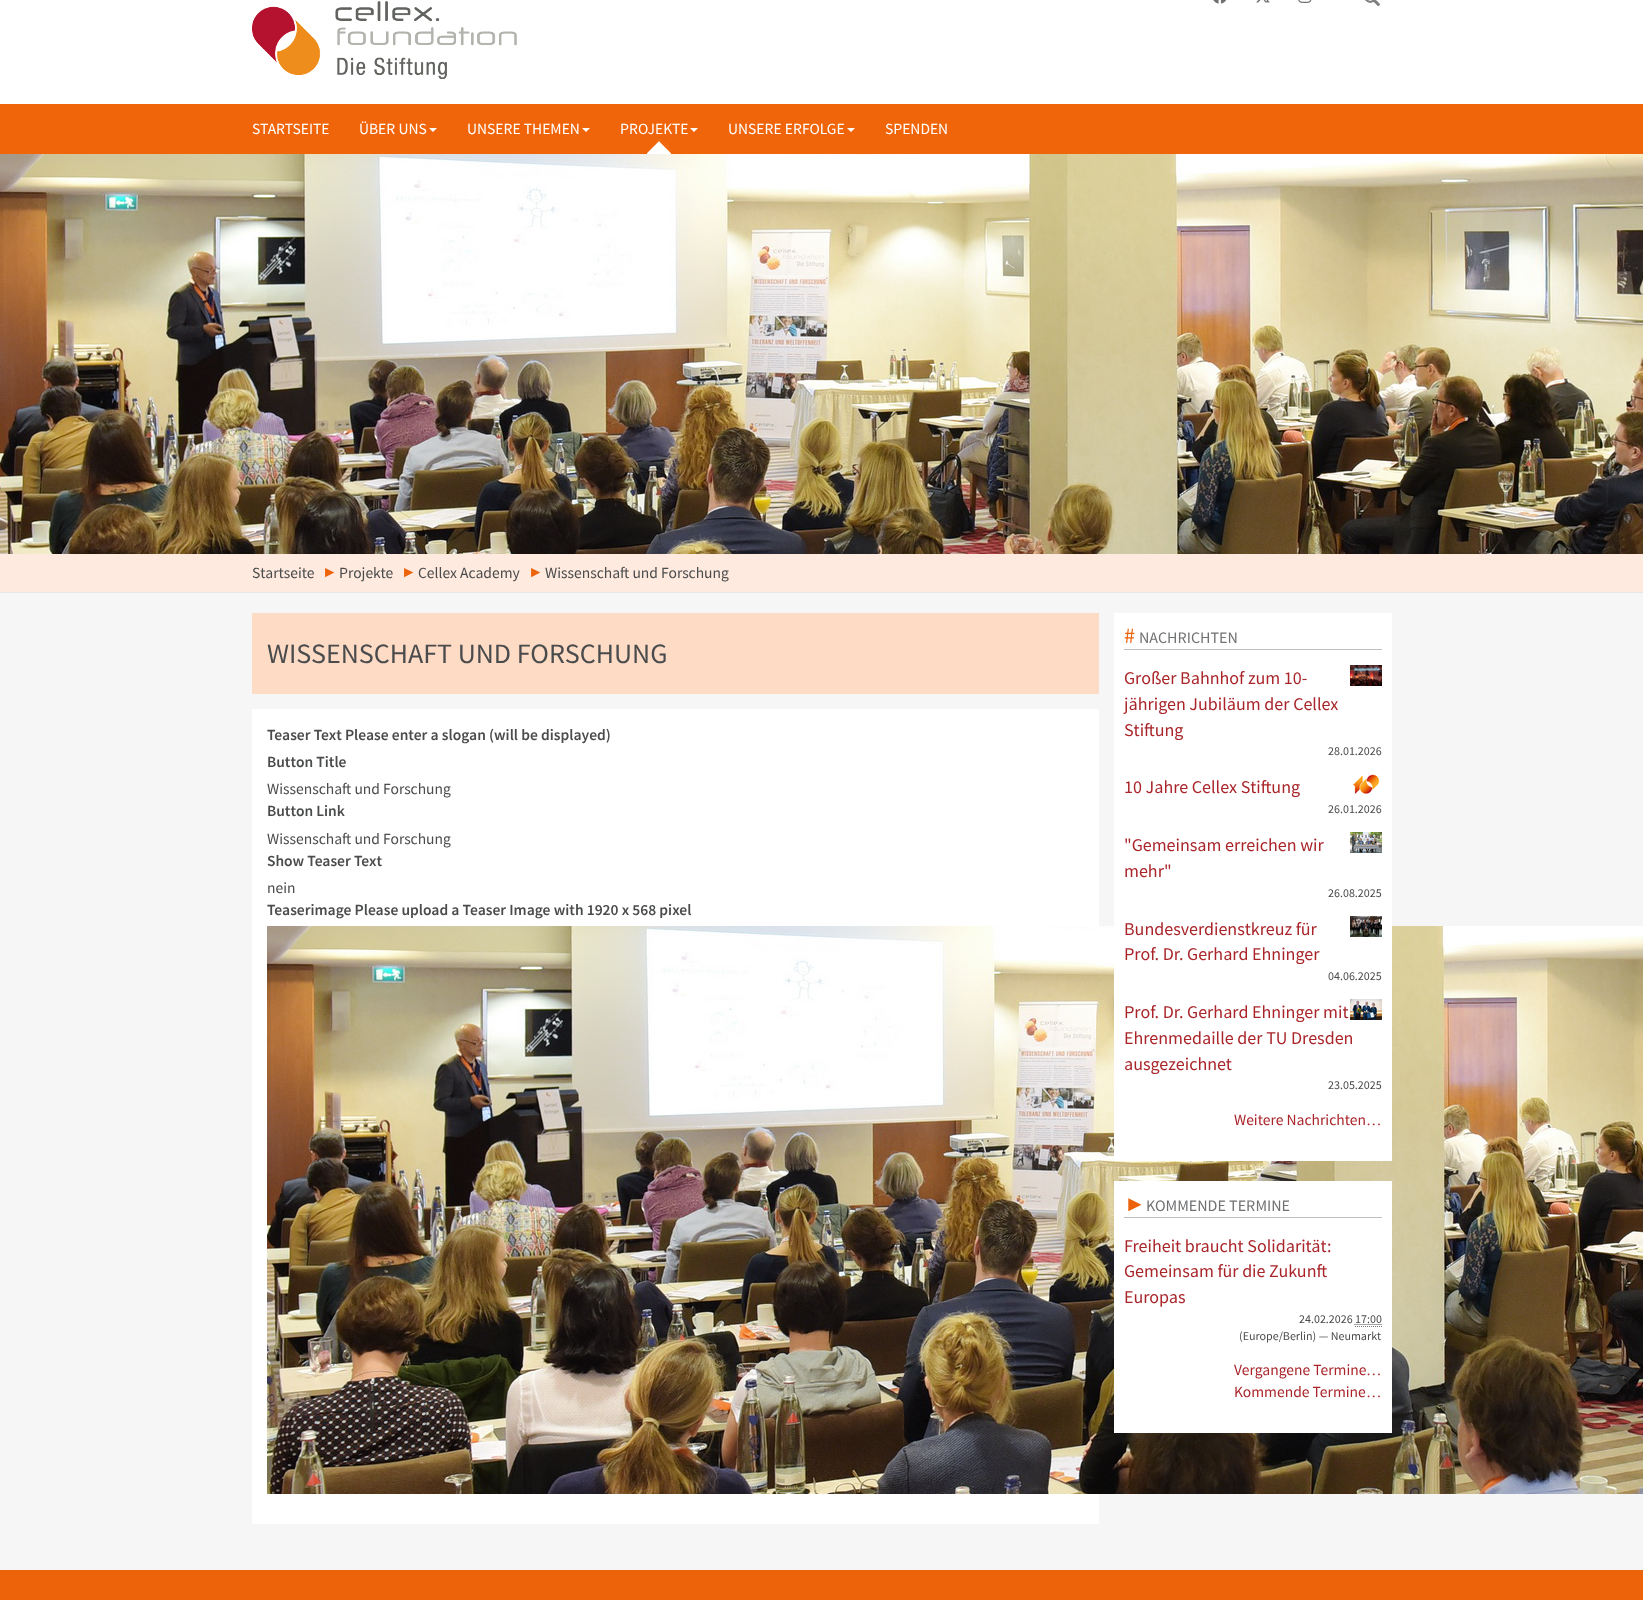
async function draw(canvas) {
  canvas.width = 1643
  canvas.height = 1600
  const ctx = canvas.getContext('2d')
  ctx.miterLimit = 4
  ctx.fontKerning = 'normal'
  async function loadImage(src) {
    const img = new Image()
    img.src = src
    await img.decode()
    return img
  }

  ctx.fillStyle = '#f6f6f6'
  ctx.fillRect(0, 0, 1643, 1600)
  ctx.fillStyle = '#fff'
  ctx.fillRect(0, 0, 1643, 104)
  ctx.drawImage(await loadImage('image0.png'), 252, 1, 265, 78)
  ctx.drawImage(await loadImage('image1.png'), 1213, 0, 14, 4)
  ctx.drawImage(await loadImage('image2.png'), 1256, 0, 14, 3)
  ctx.drawImage(await loadImage('image3.png'), 1298, 0, 14, 3)
  ctx.drawImage(await loadImage('image4.png'), 1365, 0, 15, 7)
  ctx.fillStyle = '#f1650a'
  ctx.fillRect(0, 104, 1643, 50)
  ctx.font = '15.5px Source Sans Pro'
  ctx.fillStyle = '#fff'
  ctx.fillText('STARTSEITE', 252, 134)
  ctx.fillText('ÜBER UNS', 359, 134)
  ctx.beginPath()
  ctx.moveTo(429, 128)
  ctx.lineTo(437, 128)
  ctx.lineTo(433, 132)
  ctx.closePath()
  ctx.fill()
  ctx.fillText('UNSERE THEMEN', 467, 134)
  ctx.beginPath()
  ctx.moveTo(582, 128)
  ctx.lineTo(590, 128)
  ctx.lineTo(586, 132)
  ctx.closePath()
  ctx.fill()
  ctx.drawImage(await loadImage('image5.png'), 647, 139, 24, 15)
  ctx.drawImage(await loadImage('image6.png'), 647, 139, 24, 15)
  ctx.fillText('PROJEKTE', 620, 134)
  ctx.beginPath()
  ctx.moveTo(690, 128)
  ctx.lineTo(698, 128)
  ctx.lineTo(694, 132)
  ctx.closePath()
  ctx.fill()
  ctx.fillText('UNSERE ERFOLGE', 728, 134)
  ctx.beginPath()
  ctx.moveTo(847, 128)
  ctx.lineTo(855, 128)
  ctx.lineTo(851, 132)
  ctx.closePath()
  ctx.fill()
  ctx.fillText('SPENDEN', 885, 134)
  ctx.drawImage(await loadImage('image7.png'), 0, 154, 1643, 400)
  ctx.fillStyle = '#feeade'
  ctx.fillRect(0, 554, 1643, 38)
  ctx.fillStyle = '#e6e7e7'
  ctx.fillRect(0, 592, 1643, 1)
  ctx.fillStyle = '#4a4b4c'
  ctx.fillText('Startseite', 252, 578)
  ctx.font = '15.5px Liberation Serif'
  ctx.fillStyle = '#ec630a'
  ctx.fillText('►', 322, 577)
  ctx.font = '15.5px Source Sans Pro'
  ctx.fillStyle = '#4a4b4c'
  ctx.fillText('Projekte', 339, 578)
  ctx.font = '15.5px Liberation Serif'
  ctx.fillStyle = '#ec630a'
  ctx.fillText('►', 401, 577)
  ctx.font = '15.5px Source Sans Pro'
  ctx.fillStyle = '#4a4b4c'
  ctx.fillText('Cellex Academy', 418, 578)
  ctx.font = '15.5px Liberation Serif'
  ctx.fillStyle = '#ec630a'
  ctx.fillText('►', 528, 577)
  ctx.font = '15.5px Source Sans Pro'
  ctx.fillStyle = '#4a4b4c'
  ctx.fillText('Wissenschaft und Forschung', 545, 578)
  ctx.fillStyle = '#fddbc5'
  ctx.fillRect(252, 613, 847, 81)
  ctx.font = '28px Source Sans Pro'
  ctx.fillStyle = '#4a4b4c'
  ctx.fillText('WISSENSCHAFT UND FORSCHUNG', 267, 663)
  ctx.fillStyle = '#fff'
  ctx.fillRect(252, 709, 847, 815)
  ctx.font = '600 15.5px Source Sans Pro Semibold'
  ctx.fillStyle = '#4a4b4c'
  ctx.fillText('Teaser Text Please enter a slogan (will be displayed)', 267, 740)
  ctx.fillText('Button Title', 267, 767)
  ctx.font = '15.5px Source Sans Pro'
  ctx.fillText('Wissenschaft und Forschung', 267, 794)
  ctx.font = '600 15.5px Source Sans Pro Semibold'
  ctx.fillText('Button Link', 267, 816)
  ctx.font = '15.5px Source Sans Pro'
  ctx.fillText('Wissenschaft und Forschung', 267, 844)
  ctx.font = '600 15.5px Source Sans Pro Semibold'
  ctx.fillText('Show Teaser Text', 267, 866)
  ctx.font = '15.5px Source Sans Pro'
  ctx.fillText('nein', 267, 893)
  ctx.font = '600 15.5px Source Sans Pro Semibold'
  ctx.fillText('Teaserimage Please upload a Teaser Image with 1920 x 568 pixel', 267, 915)
  ctx.drawImage(await loadImage('image8.png'), 267, 926, 1376, 568)
  ctx.fillStyle = '#fff'
  ctx.fillRect(1114, 613, 278, 548)
  ctx.fillStyle = '#bdbebf'
  ctx.fillRect(1124, 649, 258, 1)
  ctx.font = '22px Source Sans Pro'
  ctx.fillStyle = '#ec630a'
  ctx.fillText('#', 1124, 643)
  ctx.font = '16px Source Sans Pro'
  ctx.fillStyle = '#707173'
  ctx.fillText('NACHRICHTEN', 1139, 643)
  ctx.font = '18px Source Sans Pro'
  ctx.fillStyle = '#a9252a'
  ctx.fillText('Großer Bahnhof zum 10-', 1124, 684)
  ctx.drawImage(await loadImage('image9.png'), 1350, 665, 32, 21)
  ctx.fillText('jährigen Jubiläum der Cellex', 1124, 710)
  ctx.fillText('Stiftung', 1124, 736)
  ctx.font = '12px Source Sans Pro'
  ctx.fillStyle = '#4a4b4c'
  ctx.fillText('28.01.2026', 1328, 755)
  ctx.font = '18px Source Sans Pro'
  ctx.fillStyle = '#a9252a'
  ctx.fillText('10 Jahre Cellex Stiftung', 1124, 793)
  ctx.drawImage(await loadImage('image10.png'), 1353, 774, 27, 20)
  ctx.font = '12px Source Sans Pro'
  ctx.fillStyle = '#4a4b4c'
  ctx.fillText('26.01.2026', 1328, 813)
  ctx.font = '18px Source Sans Pro'
  ctx.fillStyle = '#a9252a'
  ctx.fillText('"Gemeinsam erreichen wir', 1124, 851)
  ctx.drawImage(await loadImage('image11.png'), 1350, 832, 32, 21)
  ctx.fillText('mehr"', 1124, 877)
  ctx.font = '12px Source Sans Pro'
  ctx.fillStyle = '#4a4b4c'
  ctx.fillText('26.08.2025', 1328, 897)
  ctx.font = '18px Source Sans Pro'
  ctx.fillStyle = '#a9252a'
  ctx.fillText('Bundesverdienstkreuz für', 1124, 935)
  ctx.drawImage(await loadImage('image12.png'), 1350, 916, 32, 21)
  ctx.fillText('Prof. Dr. Gerhard Ehninger', 1124, 960)
  ctx.font = '12px Source Sans Pro'
  ctx.fillStyle = '#4a4b4c'
  ctx.fillText('04.06.2025', 1328, 980)
  ctx.font = '18px Source Sans Pro'
  ctx.fillStyle = '#a9252a'
  ctx.fillText('Prof. Dr. Gerhard Ehninger mit', 1124, 1018)
  ctx.drawImage(await loadImage('image13.png'), 1350, 999, 32, 21)
  ctx.fillText('Ehrenmedaille der TU Dresden', 1124, 1044)
  ctx.fillText('ausgezeichnet', 1124, 1070)
  ctx.font = '12px Source Sans Pro'
  ctx.fillStyle = '#4a4b4c'
  ctx.fillText('23.05.2025', 1328, 1089)
  ctx.font = '15.5px Source Sans Pro'
  ctx.fillStyle = '#a9252a'
  ctx.fillText('Weitere Nachrichten', 1234, 1125)
  ctx.font = '15.5px Liberation Serif'
  ctx.fillText('…', 1366, 1125)
  ctx.fillStyle = '#fff'
  ctx.fillRect(1114, 1181, 278, 252)
  ctx.fillStyle = '#bdbebf'
  ctx.fillRect(1124, 1217, 258, 1)
  ctx.font = '22px Liberation Serif'
  ctx.fillStyle = '#ec630a'
  ctx.fillText('►', 1124, 1211)
  ctx.font = '16px Source Sans Pro'
  ctx.fillStyle = '#707173'
  ctx.fillText('KOMMENDE TERMINE', 1146, 1211)
  ctx.font = '18px Source Sans Pro'
  ctx.fillStyle = '#a9252a'
  ctx.fillText('Freiheit braucht Solidarität:', 1124, 1252)
  ctx.fillText('Gemeinsam für die Zukunft', 1124, 1277)
  ctx.fillText('Europas', 1124, 1303)
  ctx.font = '12px Source Sans Pro'
  ctx.fillStyle = '#4a4b4c'
  ctx.fillText('24.02.2026 17:00', 1299, 1323)
  ctx.beginPath()
  ctx.moveTo(1354.5, 1324.5)
  ctx.lineTo(1381.5, 1324.5)
  ctx.strokeStyle = '#4a4b4c'
  ctx.setLineDash([1, 1])
  ctx.stroke()
  ctx.beginPath()
  ctx.moveTo(1355, 1326.5)
  ctx.lineTo(1382, 1326.5)
  ctx.strokeStyle = '#777'
  ctx.stroke()
  ctx.fillText('(Europe/Berlin) — Neumarkt', 1239, 1340)
  ctx.font = '15.5px Source Sans Pro'
  ctx.fillStyle = '#a9252a'
  ctx.fillText('Vergangene Termine', 1234, 1375)
  ctx.font = '15.5px Liberation Serif'
  ctx.fillText('…', 1366, 1375)
  ctx.font = '15.5px Source Sans Pro'
  ctx.fillText('Kommende Termine', 1234, 1397)
  ctx.font = '15.5px Liberation Serif'
  ctx.fillText('…', 1366, 1397)
  ctx.fillStyle = '#ec630a'
  ctx.fillRect(0, 1570, 1643, 30)
}

draw(document.querySelector('canvas'))
